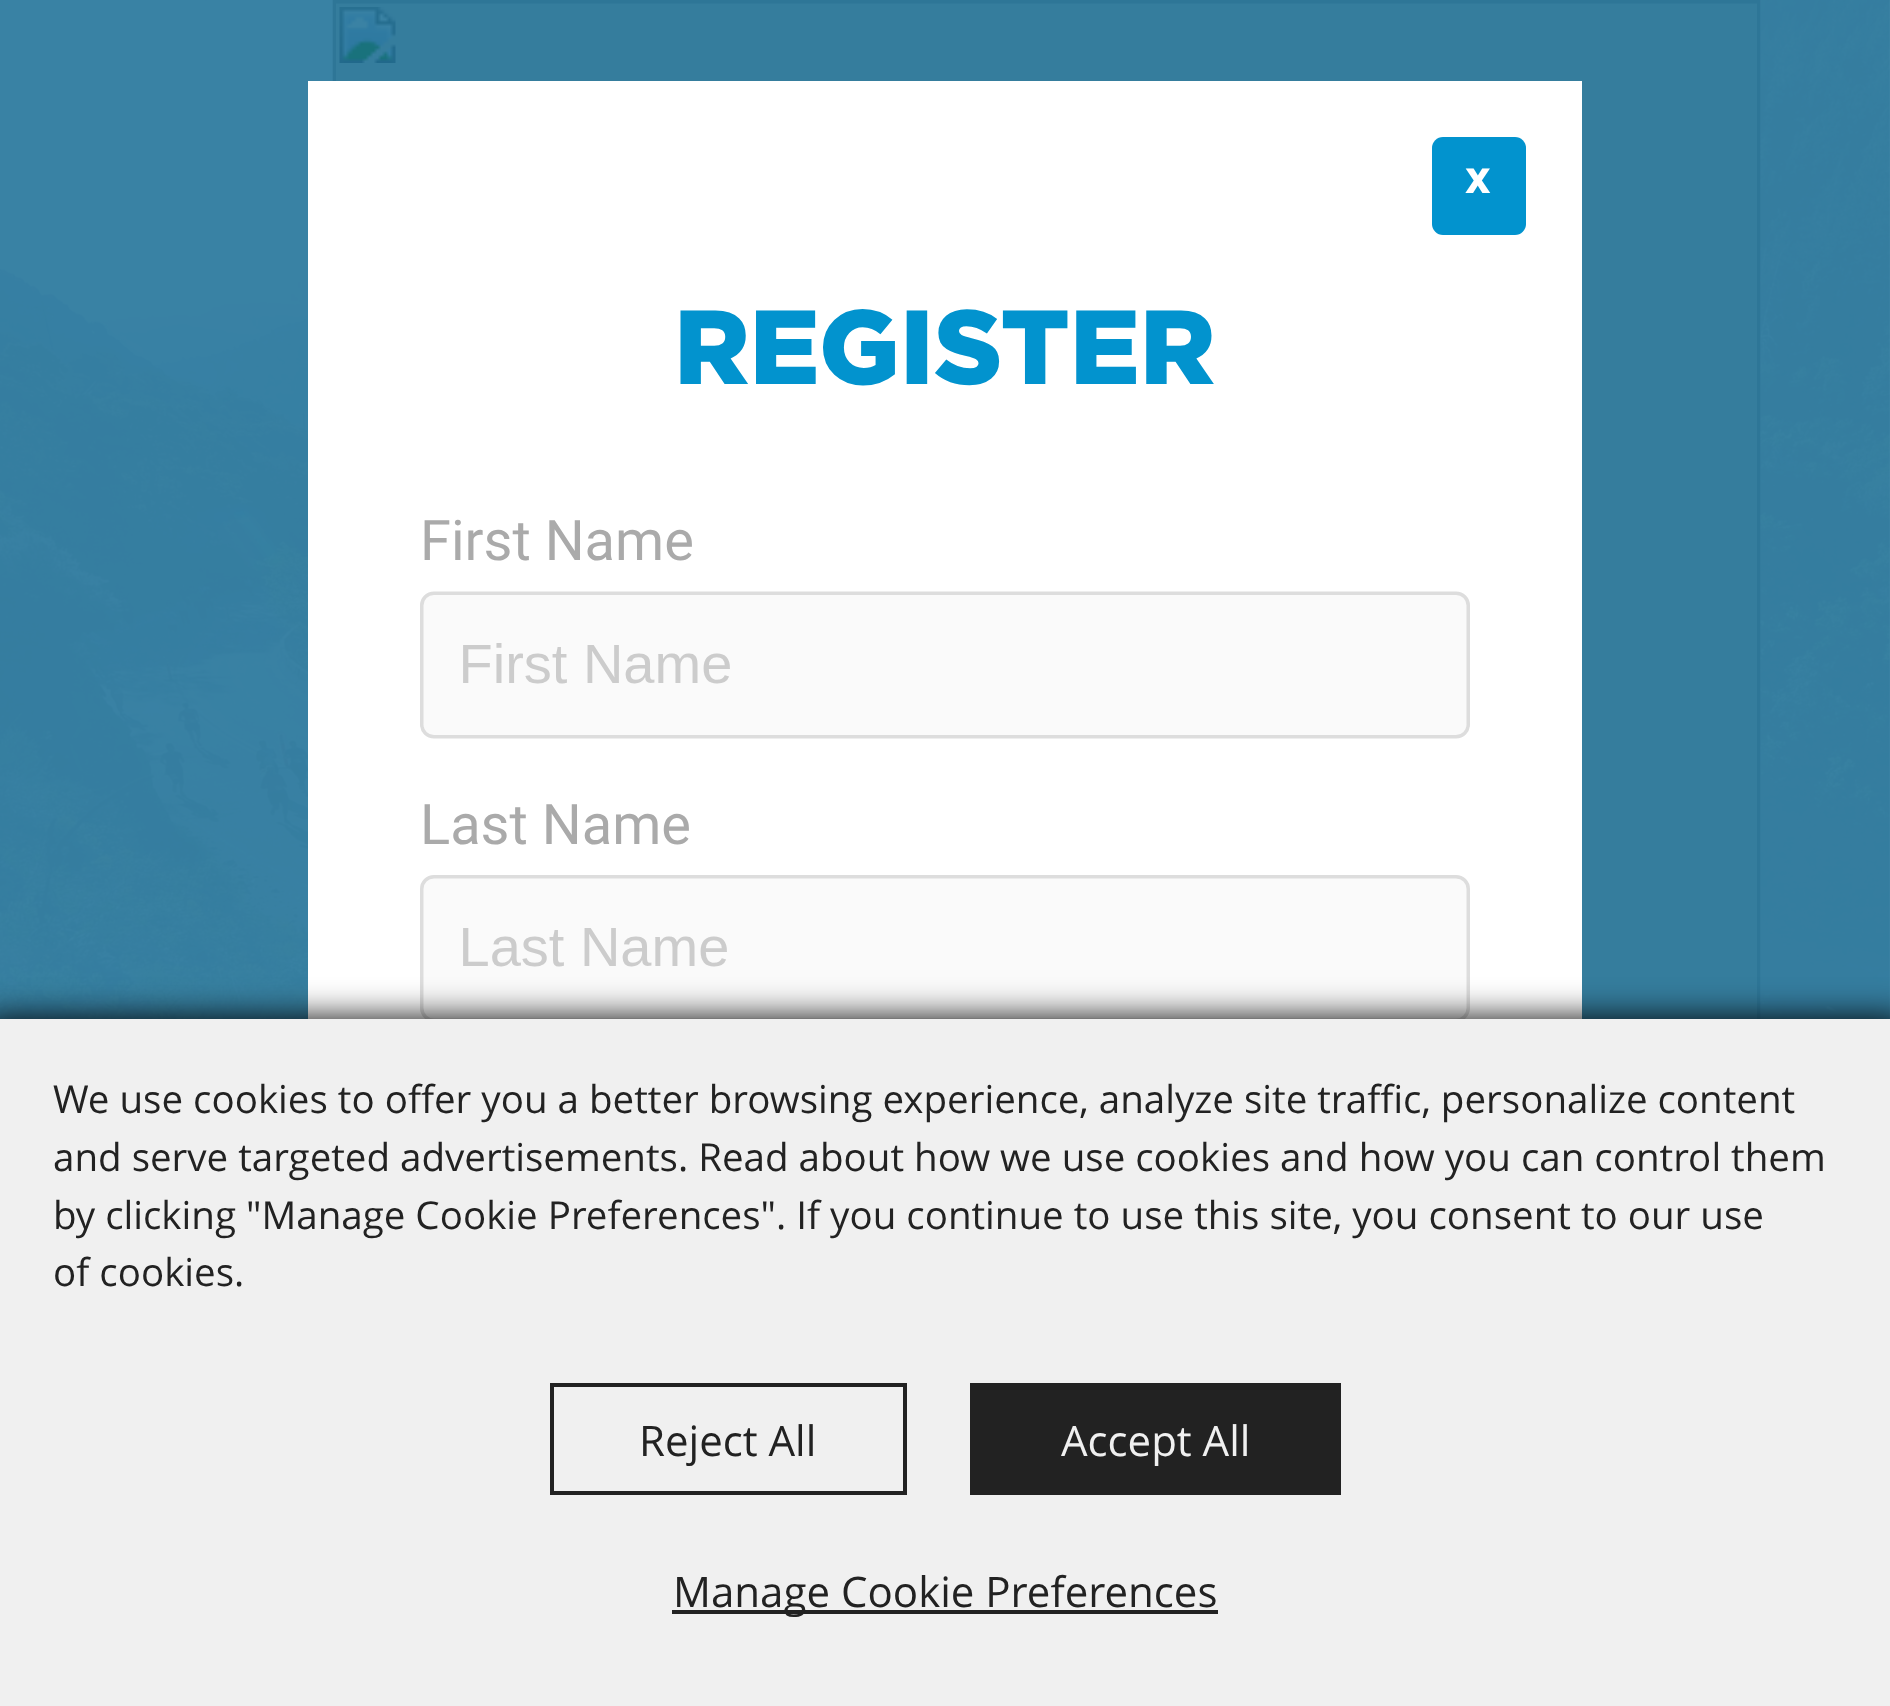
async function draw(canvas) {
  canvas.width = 1890
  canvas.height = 1706
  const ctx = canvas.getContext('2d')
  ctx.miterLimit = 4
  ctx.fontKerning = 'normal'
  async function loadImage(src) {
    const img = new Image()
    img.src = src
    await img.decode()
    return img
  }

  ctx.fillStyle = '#fff'
  ctx.fillRect(0, 0, 1890, 1706)
  ctx.drawImage(await loadImage('image0.png'), 0, 0, 1890, 1019)
  ctx.fillStyle = '#3a82a4e6'
  ctx.fillRect(0, 0, 1890, 1019)
  ctx.drawImage(await loadImage('image1.png'), 332, 0, 1429, 1019)
  ctx.fillStyle = '#fff'
  ctx.fillRect(308, 81, 1274, 938)
  ctx.fillStyle = '#0293ce'
  ctx.beginPath()
  ctx.roundRect(1432, 137, 94, 98, 11)
  ctx.fill()
  ctx.font = '900 35px Gotham'
  ctx.fillStyle = '#fff'
  ctx.fillText('X', 1465, 193)
  ctx.font = '900 105px Gotham'
  ctx.fillStyle = '#0293ce'
  ctx.fillText('REGISTER', 674, 384)
  ctx.drawImage(await loadImage('image2.png'), 420, 519, 1050, 500)
  ctx.fillStyle = '#000'
  ctx.filter = 'blur(17.5px)'
  ctx.beginPath()
  ctx.rect(-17, 1019, 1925, 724)
  ctx.fill()
  ctx.filter = 'none'
  ctx.fillStyle = '#f0f0f0'
  ctx.fillRect(0, 1019, 1890, 687)
  ctx.font = '38.5px Open Sans'
  ctx.fillStyle = '#222'
  ctx.fillText('We use cookies to offer you a better browsing experience, analyze site traffic, personalize content', 53, 1113)
  ctx.fillText('and serve targeted advertisements. Read about how we use cookies and how you can control them', 53, 1171)
  ctx.fillText('by clicking "Manage Cookie Preferences". If you continue to use this site, you consent to our use', 53, 1229)
  ctx.fillText('of cookies.', 53, 1286)
  ctx.strokeStyle = '#222'
  ctx.lineWidth = 4
  ctx.strokeRect(552, 1385, 353, 108)
  ctx.font = '42px Open Sans'
  ctx.fillText('Reject All', 639, 1456)
  ctx.fillRect(970, 1383, 371, 112)
  ctx.fillStyle = '#f0f0f0'
  ctx.fillText('Accept All', 1061, 1456)
  ctx.fillStyle = '#222'
  ctx.fillRect(672, 1610, 546, 4)
  ctx.fillText('Manage Cookie Preferences', 673, 1607)
}

draw(document.querySelector('canvas'))
